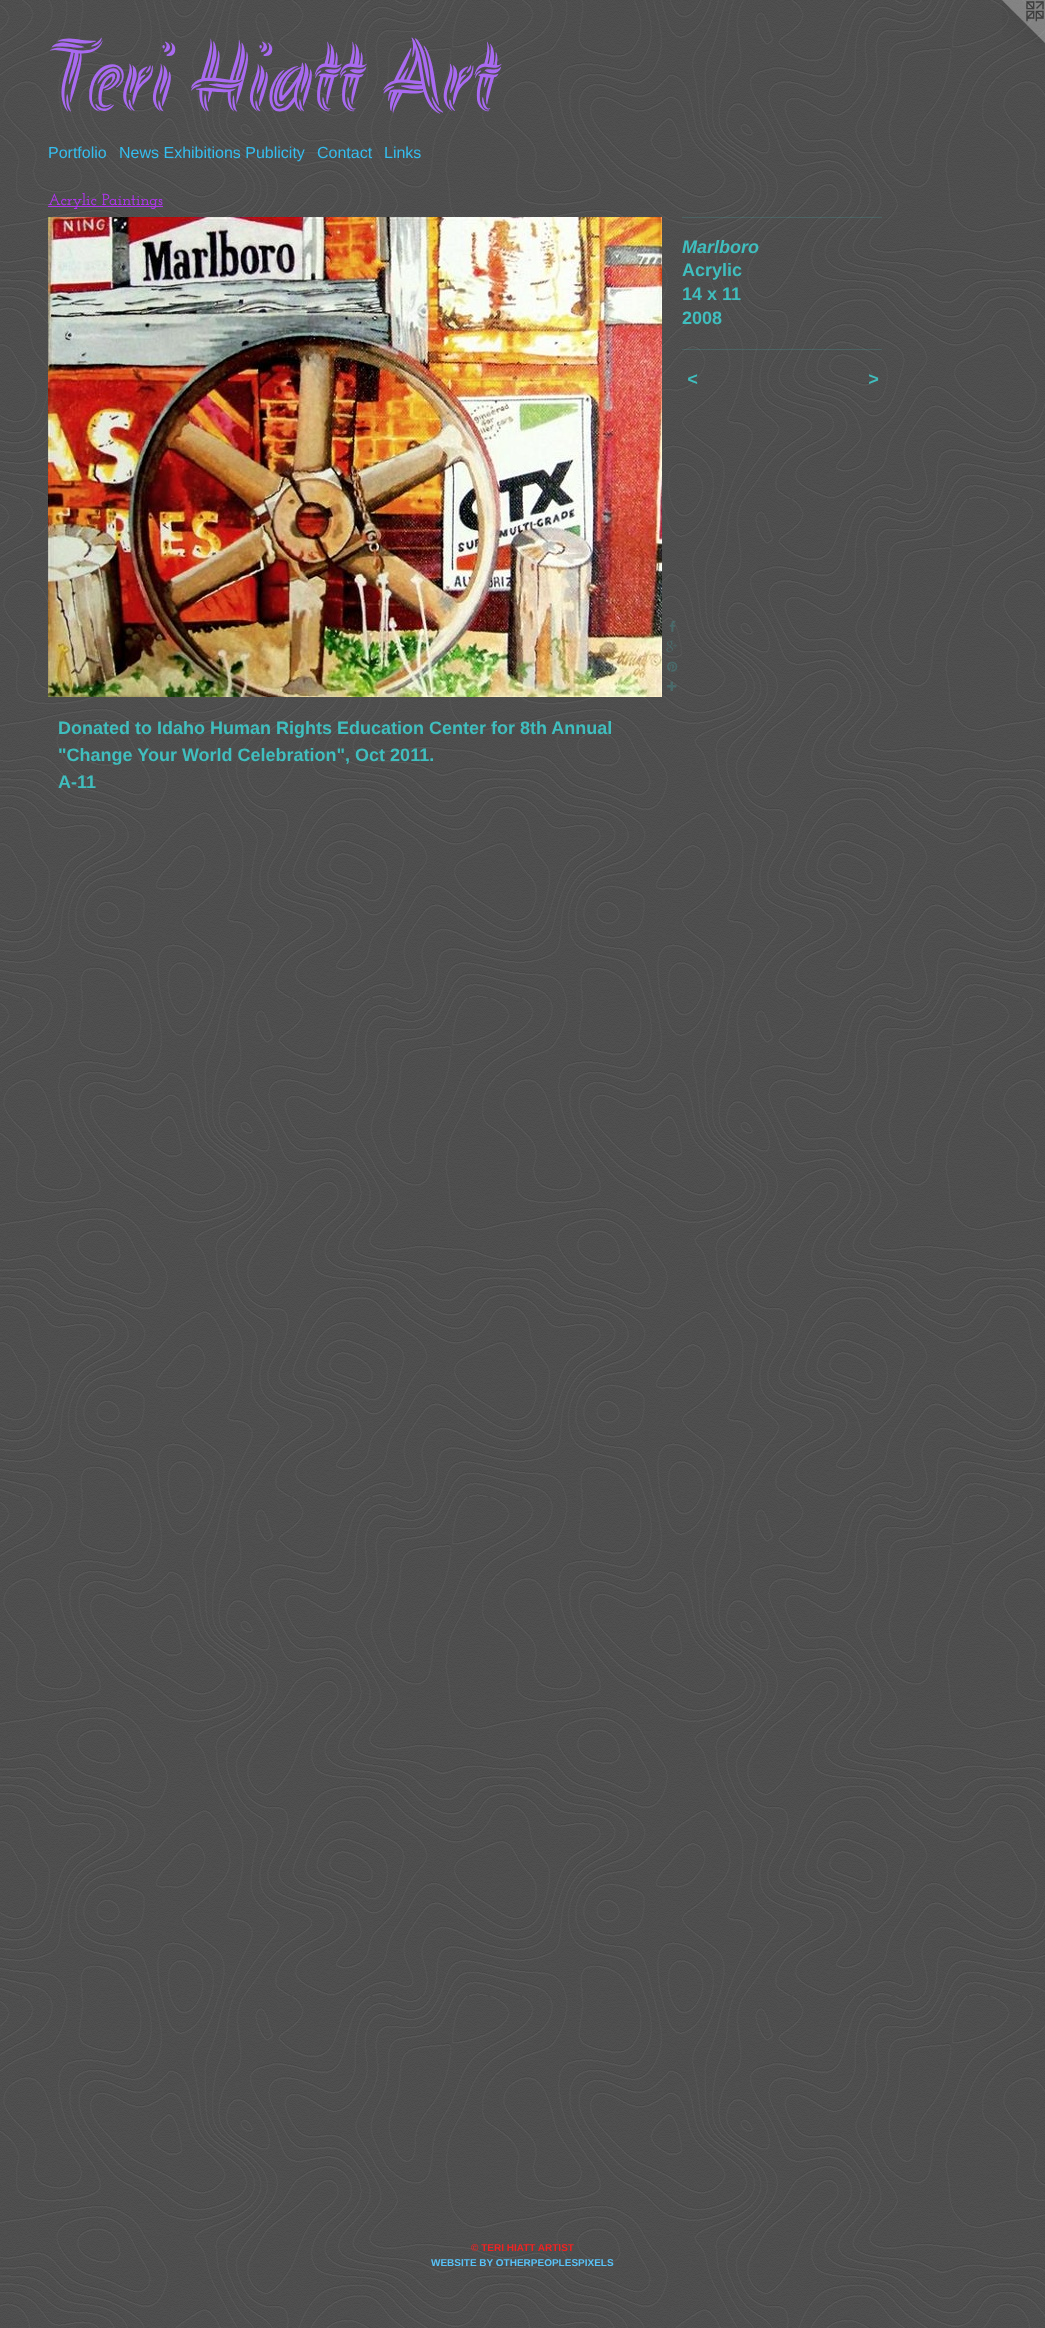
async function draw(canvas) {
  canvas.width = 1045
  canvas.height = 2328
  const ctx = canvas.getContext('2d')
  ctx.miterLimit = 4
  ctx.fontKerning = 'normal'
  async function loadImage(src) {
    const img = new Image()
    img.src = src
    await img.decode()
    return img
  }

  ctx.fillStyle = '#fff'
  ctx.fillRect(0, 0, 1045, 2328)
  ctx.drawImage(await loadImage('image0.png'), 0, 0, 1045, 2328)
  ctx.drawImage(await loadImage('image1.png'), 1002, 0, 43, 43)
  ctx.font = '99px Akronim'
  ctx.fillStyle = '#a96af1'
  ctx.fillText('Teri Hiatt Art', 48, 111)
  ctx.font = '16px Liberation Sans'
  ctx.fillStyle = '#35beef'
  ctx.fillText('Portfolio', 48, 158)
  ctx.fillText('News Exhibitions Publicity', 119, 158)
  ctx.fillText('Contact', 317, 158)
  ctx.fillText('Links', 384, 158)
  ctx.fillStyle = '#b235ef'
  ctx.fillRect(48, 206, 115, 1)
  ctx.font = '100 16px Josefin Slab'
  ctx.fillText('Acrylic Paintings', 48, 205)
  ctx.drawImage(await loadImage('image2.png'), 48, 217, 614, 480)
  ctx.drawImage(await loadImage('image3.png'), 669, 620, 7, 12)
  ctx.drawImage(await loadImage('image4.png'), 666, 640, 11, 12)
  ctx.drawImage(await loadImage('image5.png'), 667, 661, 11, 11)
  ctx.drawImage(await loadImage('image6.png'), 667, 681, 10, 10)
  ctx.fillStyle = '#40bebe33'
  ctx.fillRect(682, 217, 200, 1)
  ctx.font = 'italic bold 18px Liberation Sans'
  ctx.fillStyle = '#40bebe'
  ctx.fillText('Marlboro', 682, 253)
  ctx.font = 'bold 18px Liberation Sans'
  ctx.fillText('Acrylic', 682, 276)
  ctx.fillText('14 x 11', 682, 300)
  ctx.fillText('2008', 682, 324)
  ctx.fillStyle = '#40bebe33'
  ctx.fillRect(682, 349, 200, 1)
  ctx.letterSpacing = '1px'
  ctx.font = 'italic bold 18px Liberation Sans'
  ctx.fillStyle = '#40bebe'
  ctx.fillText('<', 687, 385)
  ctx.fillText('>', 868, 385)
  ctx.letterSpacing = '0px'
  ctx.font = 'bold 18px Liberation Sans'
  ctx.fillText('Donated to Idaho Human Rights Education Center for 8th Annual', 58, 734)
  ctx.fillText('"Change Your World Celebration", Oct 2011.', 58, 761)
  ctx.fillText('A-11', 58, 788)
  ctx.font = 'bold 10px Liberation Sans'
  ctx.fillStyle = '#f12323'
  ctx.fillText('© TERI HIATT ARTIST', 471, 2251)
  ctx.fillStyle = '#59c2f7'
  ctx.fillText('WEBSITE BY OTHERPEOPLESPIXELS', 431, 2266)
}

draw(document.querySelector('canvas'))
